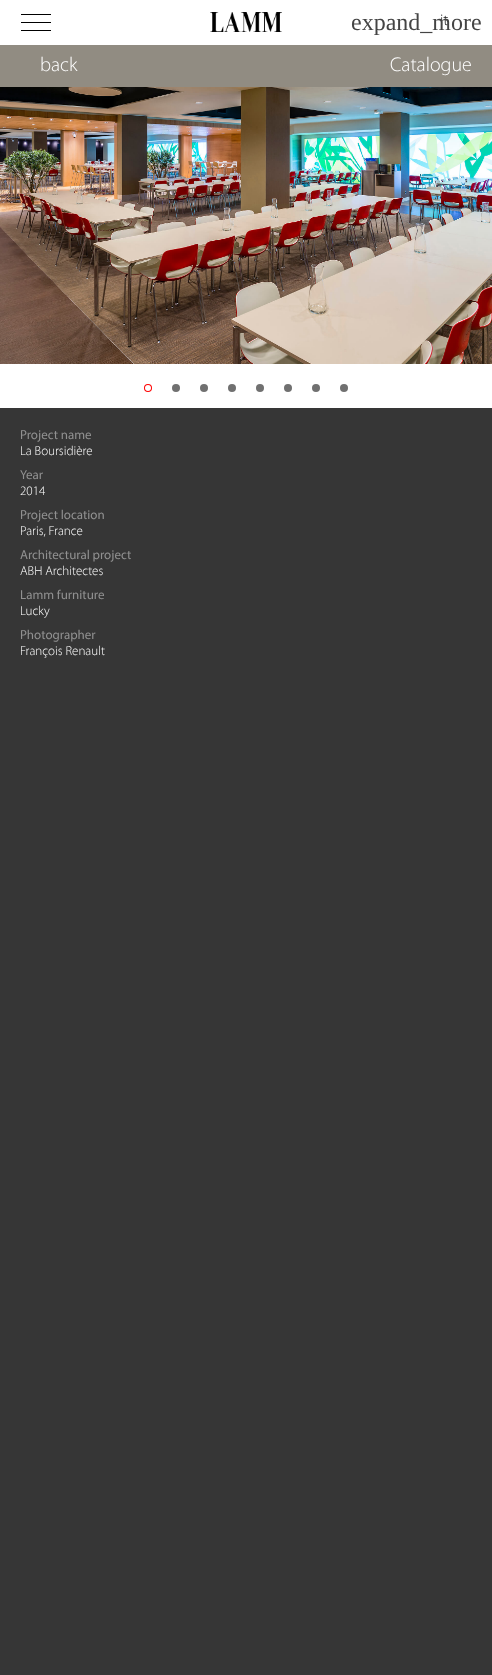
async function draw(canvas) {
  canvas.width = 492
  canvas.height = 1675
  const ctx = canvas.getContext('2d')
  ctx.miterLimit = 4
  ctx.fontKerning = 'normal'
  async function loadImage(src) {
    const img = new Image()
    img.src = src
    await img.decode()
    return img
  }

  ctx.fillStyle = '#fff'
  ctx.fillRect(0, 0, 492, 1675)
  ctx.drawImage(await loadImage('image0.png'), 21, 14, 30, 17)
  ctx.drawImage(await loadImage('image1.png'), 210, 12, 72, 20)
  ctx.font = '300 16px Myriad'
  ctx.fillStyle = '#1a1a1a'
  ctx.fillText('it', 440, 25)
  ctx.font = '24px Liberation Serif'
  ctx.fillStyle = '#444'
  ctx.fillText('expand_more', 351, 30)
  ctx.fillStyle = '#918c82'
  ctx.fillRect(0, 45, 492, 42)
  ctx.font = '300 20px Myriad'
  ctx.fillStyle = '#fff'
  ctx.fillText('back', 40, 71)
  ctx.fillText('Catalogue', 390, 71)
  ctx.drawImage(await loadImage('image2.png'), 0, 87, 492, 277)
  ctx.fillStyle = '#f00'
  ctx.beginPath()
  ctx.arc(148, 388, 4, 0, 2 * Math.PI)
  ctx.fill()
  ctx.fillStyle = '#fff'
  ctx.beginPath()
  ctx.arc(148, 388, 3, 0, 2 * Math.PI)
  ctx.fill()
  ctx.fillStyle = '#707070'
  ctx.beginPath()
  ctx.arc(176, 388, 4, 0, 2 * Math.PI)
  ctx.fill()
  ctx.beginPath()
  ctx.arc(204, 388, 4, 0, 2 * Math.PI)
  ctx.fill()
  ctx.beginPath()
  ctx.arc(232, 388, 4, 0, 2 * Math.PI)
  ctx.fill()
  ctx.beginPath()
  ctx.arc(260, 388, 4, 0, 2 * Math.PI)
  ctx.fill()
  ctx.beginPath()
  ctx.arc(288, 388, 4, 0, 2 * Math.PI)
  ctx.fill()
  ctx.beginPath()
  ctx.arc(316, 388, 4, 0, 2 * Math.PI)
  ctx.fill()
  ctx.beginPath()
  ctx.arc(344, 388, 4, 0, 2 * Math.PI)
  ctx.fill()
  ctx.fillStyle = '#363636'
  ctx.fillRect(0, 408, 492, 1267)
  ctx.font = '13px Myriad'
  ctx.fillStyle = '#919191'
  ctx.fillText('Project name', 20, 439)
  ctx.font = '300 13px Myriad'
  ctx.fillStyle = '#fff'
  ctx.fillText('La Boursidière', 20, 455)
  ctx.font = '13px Myriad'
  ctx.fillStyle = '#919191'
  ctx.fillText('Year', 20, 479)
  ctx.font = '300 13px Myriad'
  ctx.fillStyle = '#fff'
  ctx.fillText('2014', 20, 495)
  ctx.font = '13px Myriad'
  ctx.fillStyle = '#919191'
  ctx.fillText('Project location', 20, 519)
  ctx.font = '300 13px Myriad'
  ctx.fillStyle = '#fff'
  ctx.fillText('Paris, France', 20, 535)
  ctx.font = '13px Myriad'
  ctx.fillStyle = '#919191'
  ctx.fillText('Architectural project', 20, 559)
  ctx.font = '300 13px Myriad'
  ctx.fillStyle = '#fff'
  ctx.fillText('ABH Architectes', 20, 575)
  ctx.font = '13px Myriad'
  ctx.fillStyle = '#919191'
  ctx.fillText('Lamm furniture', 20, 599)
  ctx.font = '300 13px Myriad'
  ctx.fillStyle = '#fff'
  ctx.fillText('Lucky', 20, 615)
  ctx.font = '13px Myriad'
  ctx.fillStyle = '#919191'
  ctx.fillText('Photographer', 20, 639)
  ctx.font = '300 13px Myriad'
  ctx.fillStyle = '#fff'
  ctx.fillText('François Renault', 20, 655)
}

draw(document.querySelector('canvas'))
